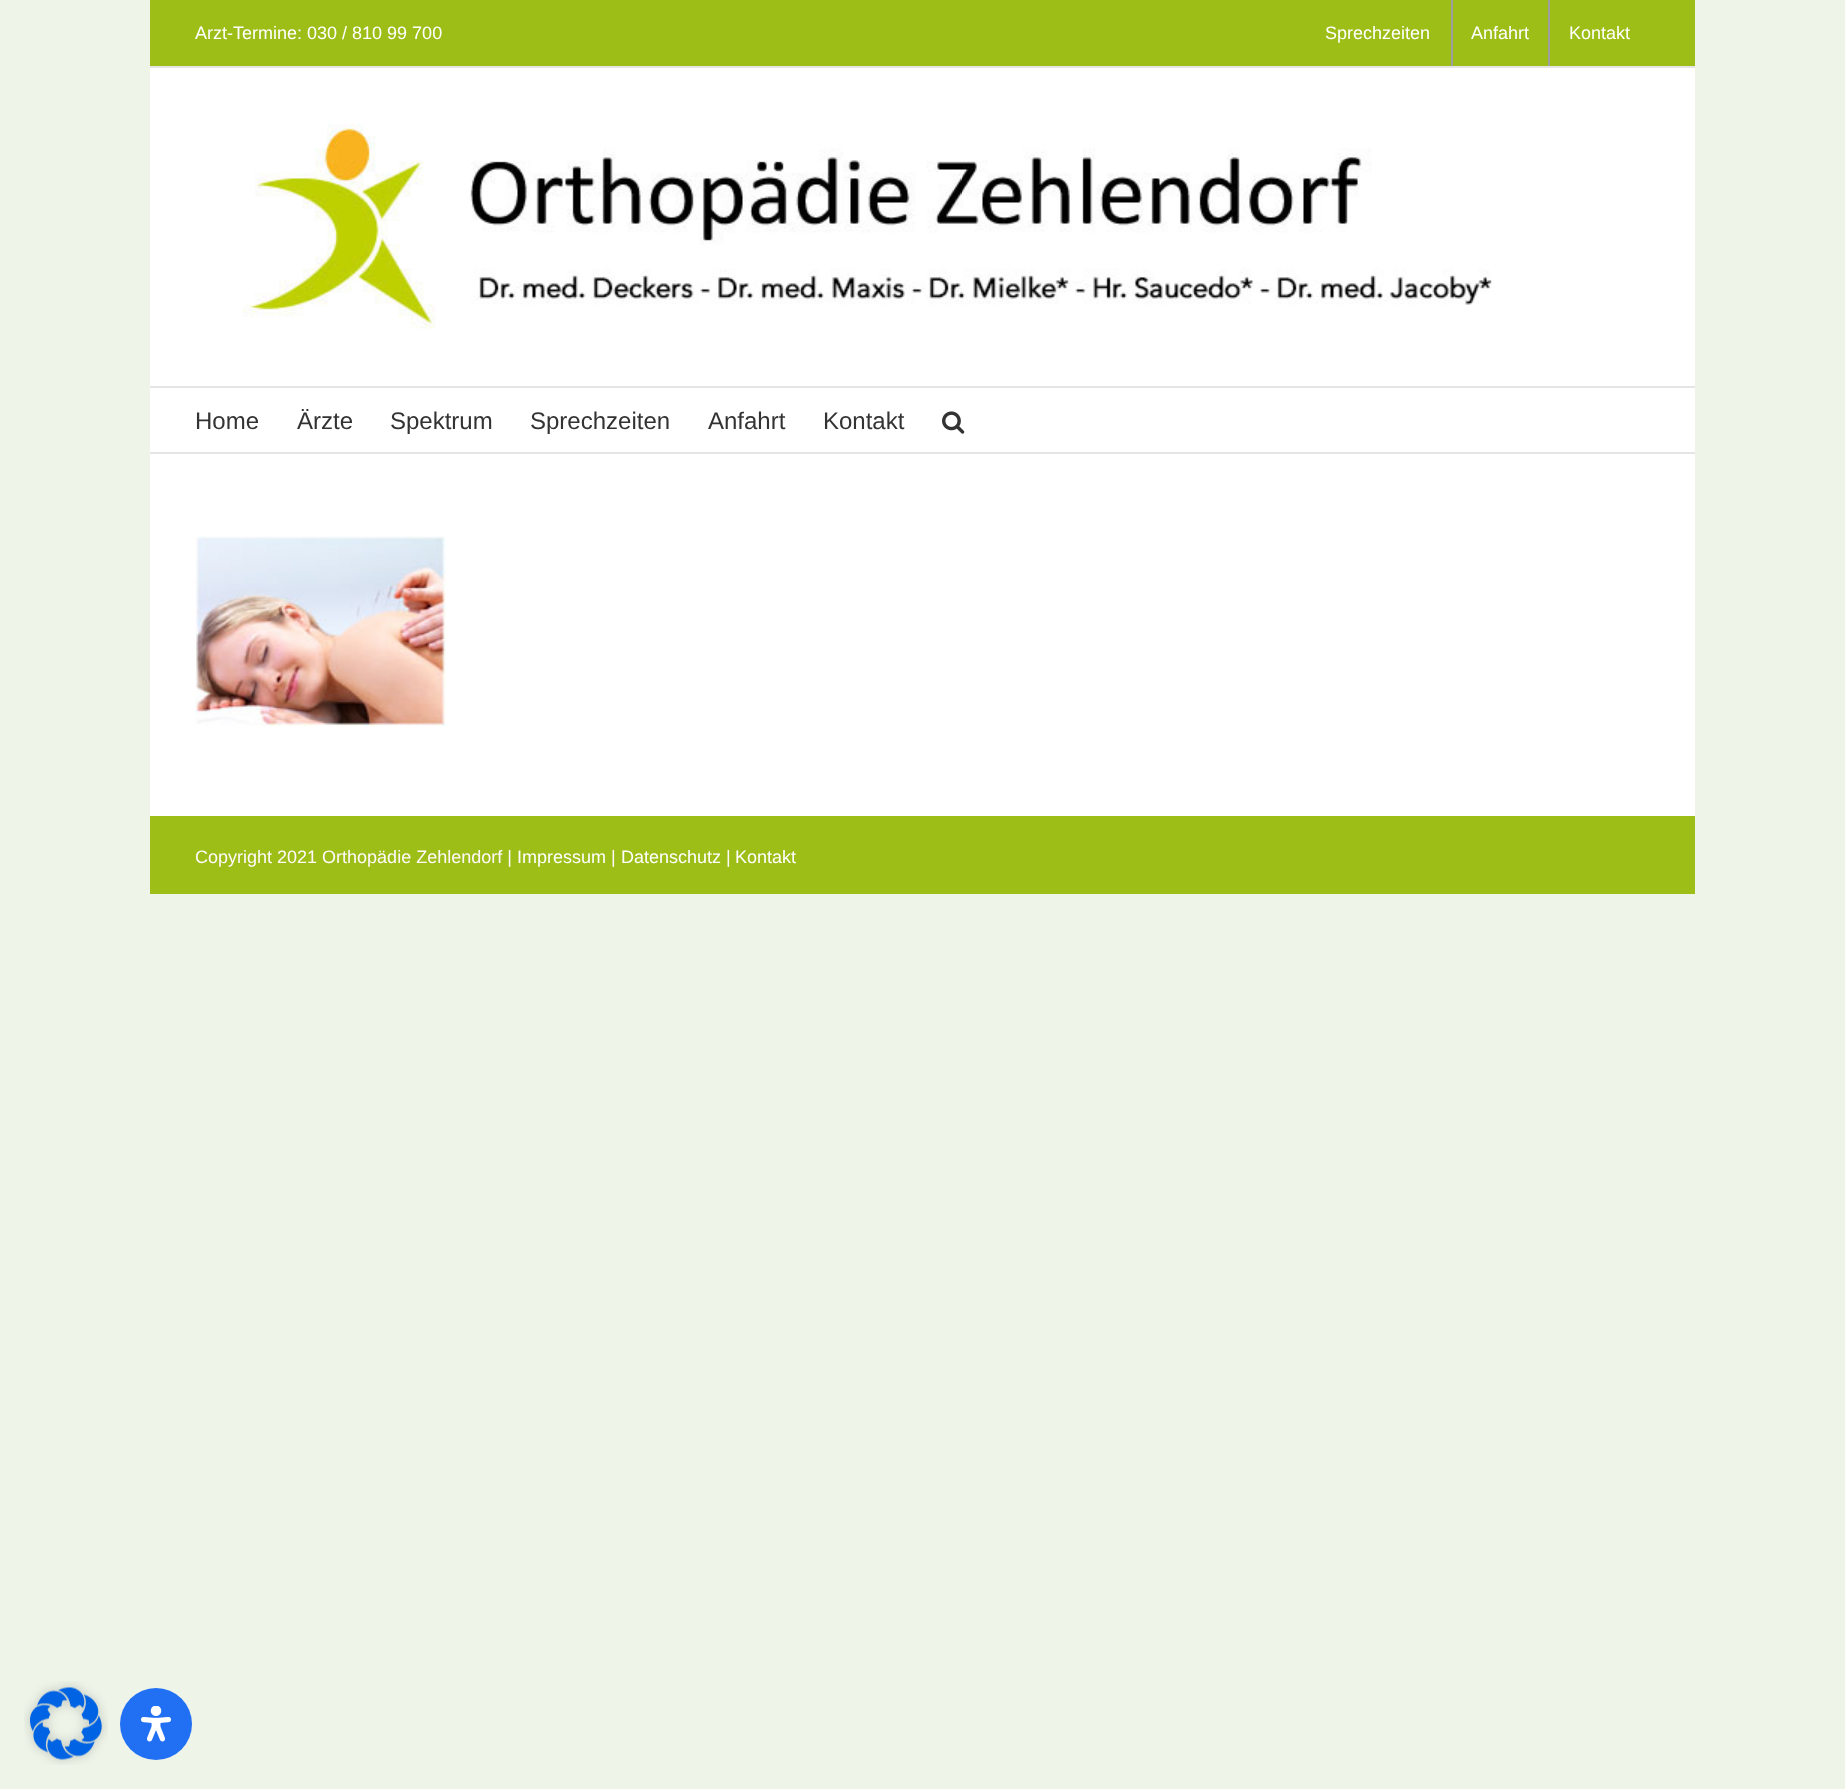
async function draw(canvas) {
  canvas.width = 1845
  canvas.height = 1789
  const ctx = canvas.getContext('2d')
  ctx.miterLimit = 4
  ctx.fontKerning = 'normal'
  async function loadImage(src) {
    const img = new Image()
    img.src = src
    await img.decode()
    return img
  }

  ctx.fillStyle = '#eef4e8'
  ctx.fillRect(0, 0, 1845, 1789)
  ctx.fillStyle = '#9dbe17'
  ctx.fillRect(150, 0, 1545, 66)
  ctx.fillStyle = '#e5e5e5'
  ctx.fillRect(150, 66, 1545, 2)
  ctx.font = '18px Liberation Sans'
  ctx.fillStyle = '#fff'
  ctx.fillText('Arzt-Termine: 030 / 810 99 700', 195, 39)
  ctx.fillText('Sprechzeiten', 1325, 39)
  ctx.fillStyle = '#9e9e9e'
  ctx.fillRect(1451, 0, 2, 66)
  ctx.fillStyle = '#fff'
  ctx.fillText('Anfahrt', 1471, 39)
  ctx.fillStyle = '#9e9e9e'
  ctx.fillRect(1548, 0, 2, 66)
  ctx.fillStyle = '#fff'
  ctx.fillText('Kontakt', 1569, 39)
  ctx.fillRect(150, 68, 1545, 318)
  ctx.fillStyle = '#e5e5e5'
  ctx.fillRect(150, 386, 1545, 2)
  ctx.drawImage(await loadImage('image0.png'), 243, 124, 1249, 205)
  ctx.fillStyle = '#fff'
  ctx.fillRect(150, 388, 1545, 64)
  ctx.fillStyle = '#e5e5e5'
  ctx.fillRect(150, 452, 1545, 2)
  ctx.font = '24px Liberation Sans'
  ctx.fillStyle = '#333'
  ctx.fillText('Home', 195, 429)
  ctx.fillText('Ärzte', 297, 429)
  ctx.fillText('Spektrum', 390, 429)
  ctx.fillText('Sprechzeiten', 530, 429)
  ctx.fillText('Anfahrt', 708, 429)
  ctx.fillText('Kontakt', 823, 429)
  ctx.drawImage(await loadImage('image1.png'), 942, 411, 23, 23)
  ctx.fillStyle = '#fff'
  ctx.fillRect(150, 454, 1545, 362)
  ctx.drawImage(await loadImage('image2.png'), 195, 535, 251, 191)
  ctx.fillStyle = '#9dbe17'
  ctx.fillRect(150, 816, 1545, 78)
  ctx.font = '18px Liberation Sans'
  ctx.fillStyle = '#fff9f9'
  ctx.fillText('Copyright 2021 Orthopädie Zehlendorf |', 195, 863)
  ctx.fillStyle = '#fff'
  ctx.fillText('Impressum', 517, 863)
  ctx.fillStyle = '#fff9f9'
  ctx.fillText('|', 611, 863)
  ctx.fillStyle = '#fff'
  ctx.fillText('Datenschutz', 621, 863)
  ctx.fillStyle = '#fff9f9'
  ctx.fillText('|', 726, 863)
  ctx.fillStyle = '#fff'
  ctx.fillText('Kontakt', 735, 863)
  ctx.drawImage(await loadImage('image3.png'), 24, 1681, 84, 84)
  ctx.fillStyle = '#216ff3'
  ctx.beginPath()
  ctx.arc(156, 1724, 36, 0, 2 * Math.PI)
  ctx.fill()
  ctx.drawImage(await loadImage('image4.png'), 140, 1706, 32, 36)
}

draw(document.querySelector('canvas'))
